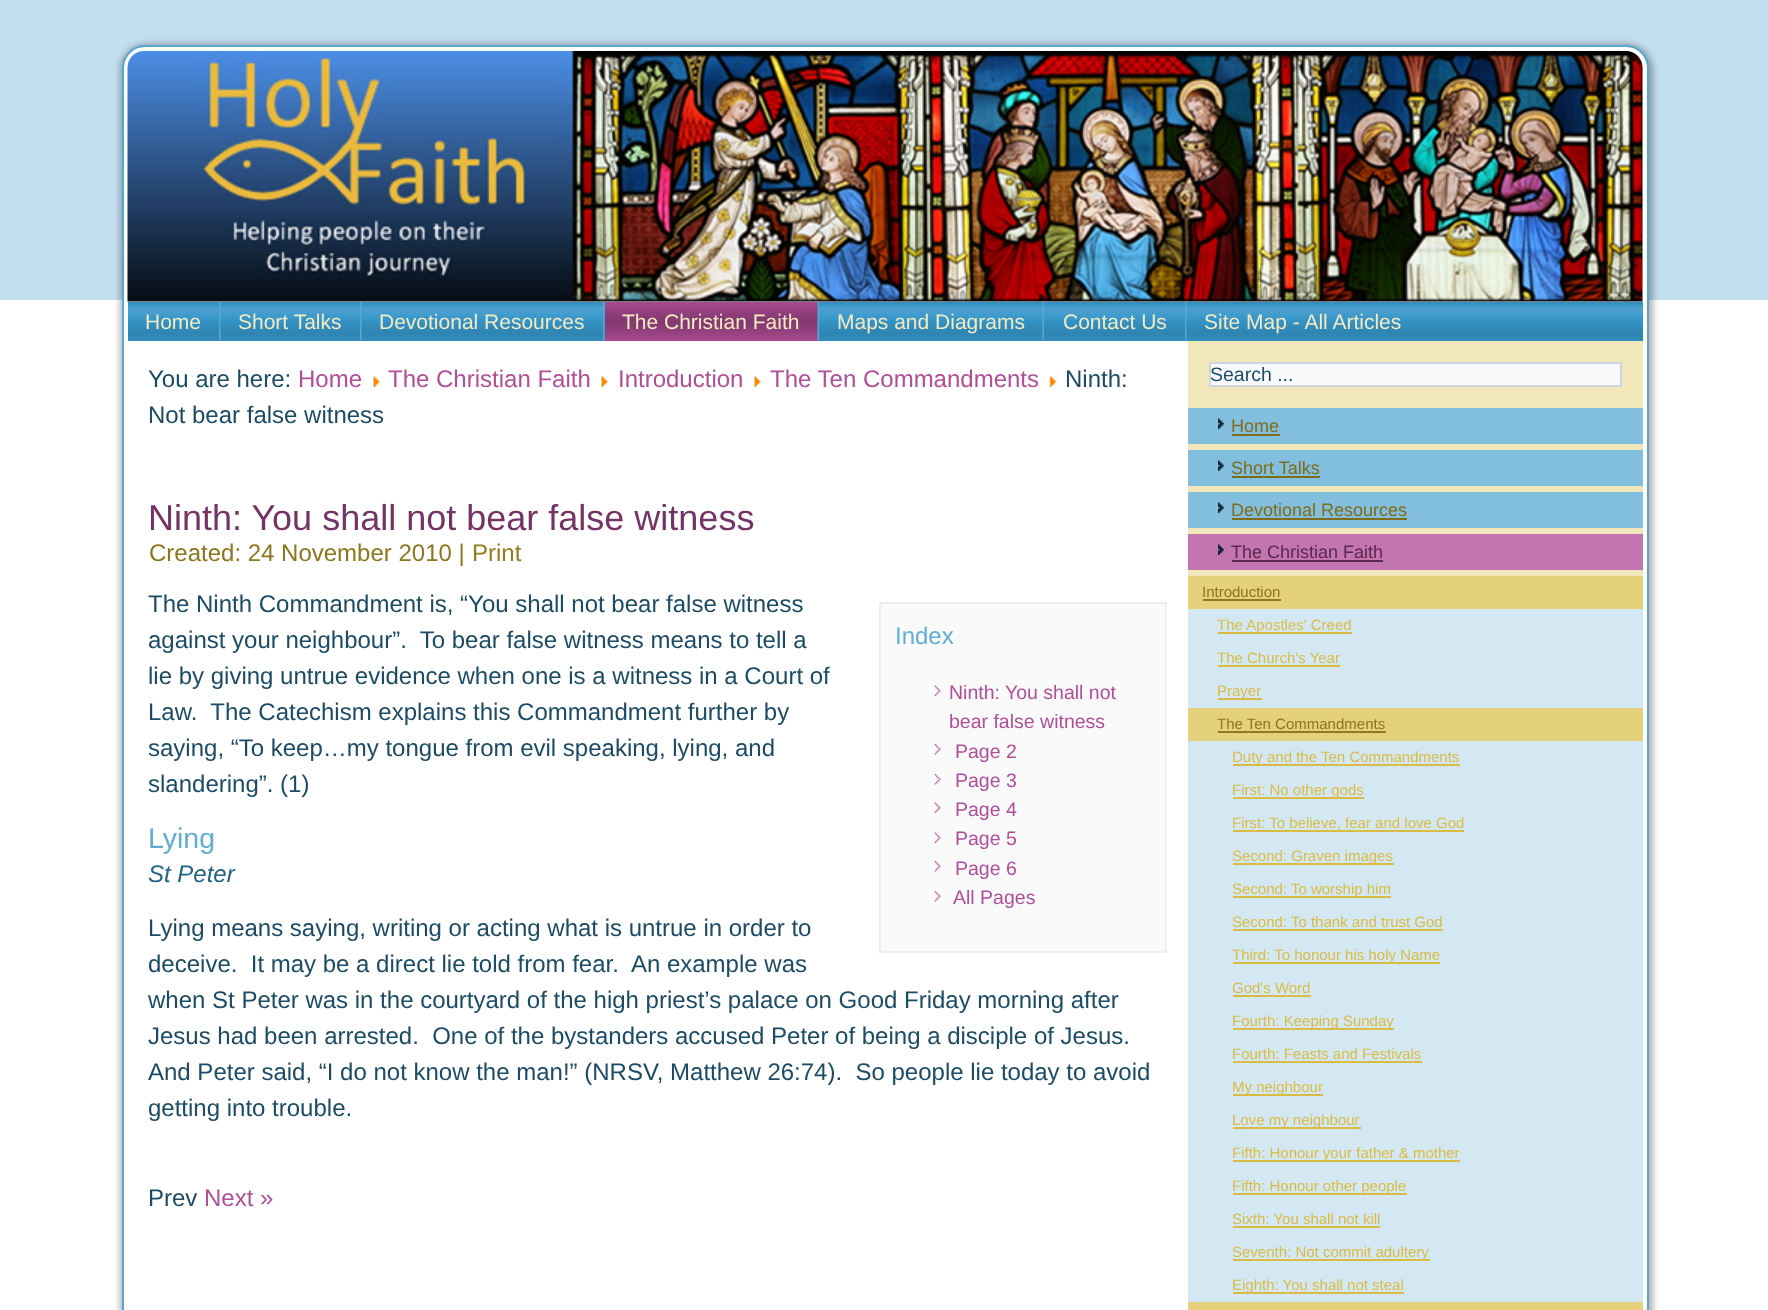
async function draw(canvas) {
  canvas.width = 1768
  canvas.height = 1310
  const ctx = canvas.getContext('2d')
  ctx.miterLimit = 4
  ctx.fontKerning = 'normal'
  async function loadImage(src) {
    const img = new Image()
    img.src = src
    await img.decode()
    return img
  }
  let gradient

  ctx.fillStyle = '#fff'
  ctx.fillRect(0, 0, 1768, 1310)
  ctx.fillStyle = '#c3dfef'
  ctx.fillRect(0, 0, 1768, 300)
  ctx.fillStyle = '#0000004d'
  ctx.filter = 'blur(3px)'
  ctx.beginPath()
  ctx.roundRect(120, 44, 1533, 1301, 26)
  ctx.fill()
  ctx.filter = 'none'
  ctx.fillStyle = '#fff'
  ctx.beginPath()
  ctx.roundRect(123, 46, 1525, 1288, 22)
  ctx.fill()
  ctx.strokeStyle = '#56a7d2'
  ctx.lineWidth = 2
  ctx.stroke()
  ctx.drawImage(await loadImage('image0.png'), 127, 51, 1516, 251)
  gradient = ctx.createLinearGradient(885, 301, 885, 341)
  gradient.addColorStop(0, '#3087b5')
  gradient.addColorStop(0.09, '#3696c9')
  gradient.addColorStop(0.2, '#4ea2d0')
  gradient.addColorStop(0.46, '#3696c9')
  gradient.addColorStop(0.5, '#3493c5')
  gradient.addColorStop(0.8, '#2f84b1')
  gradient.addColorStop(1, '#328dbd')
  ctx.fillStyle = gradient
  ctx.fillRect(128, 302, 1515, 39)
  ctx.font = '21px Liberation Sans'
  ctx.fillStyle = '#f3eac3'
  ctx.fillText('Home', 145, 329)
  ctx.drawImage(await loadImage('image1.png'), 219, 301, 2, 40)
  ctx.fillText('Short Talks', 238, 329)
  ctx.drawImage(await loadImage('image1.png'), 360, 301, 2, 40)
  ctx.fillText('Devotional Resources', 379, 329)
  ctx.drawImage(await loadImage('image2.png'), 603, 301, 2, 40)
  gradient = ctx.createLinearGradient(711, 302, 711, 341)
  gradient.addColorStop(0, '#a7498f')
  gradient.addColorStop(0.4, '#873b74')
  gradient.addColorStop(0.5, '#833a71')
  gradient.addColorStop(0.6, '#873b74')
  gradient.addColorStop(1, '#a7498f')
  ctx.fillStyle = gradient
  ctx.fillRect(605, 302, 213, 39)
  ctx.fillStyle = '#f3eac3'
  ctx.fillText('The Christian Faith', 622, 329)
  ctx.drawImage(await loadImage('image3.png'), 817, 301, 2, 40)
  ctx.fillText('Maps and Diagrams', 837, 329)
  ctx.drawImage(await loadImage('image4.png'), 1042, 301, 2, 40)
  ctx.fillText('Contact Us', 1063, 329)
  ctx.drawImage(await loadImage('image5.png'), 1185, 301, 2, 40)
  ctx.fillText('Site Map - All Articles', 1204, 329)
  ctx.font = '24px Liberation Sans'
  ctx.fillStyle = '#1b4b65'
  ctx.fillText('You are here:', 148, 387)
  ctx.fillStyle = '#b14e98'
  ctx.fillText('Home', 298, 387)
  ctx.drawImage(await loadImage('image6.png'), 373, 376, 7, 11)
  ctx.fillText('The Christian Faith', 388, 387)
  ctx.drawImage(await loadImage('image6.png'), 601, 376, 7, 11)
  ctx.fillText('Introduction', 618, 387)
  ctx.drawImage(await loadImage('image6.png'), 754, 376, 7, 11)
  ctx.fillText('The Ten Commandments', 770, 387)
  ctx.drawImage(await loadImage('image7.png'), 1049, 376, 8, 11)
  ctx.fillStyle = '#1b4b65'
  ctx.fillText('Ninth:', 1065, 387)
  ctx.fillText('Not bear false witness', 148, 423)
  ctx.font = '36px Liberation Sans'
  ctx.fillStyle = '#753365'
  ctx.fillText('Ninth: You shall not bear false witness', 148, 530)
  ctx.font = '24px Liberation Sans'
  ctx.fillStyle = '#8d761c'
  ctx.fillText('Created: 24 November 2010 |', 149, 561)
  ctx.fillStyle = '#957d1d'
  ctx.fillText('Print', 472, 561)
  ctx.fillStyle = '#1b4b65'
  ctx.fillText('The Ninth Commandment is, “You shall not bear false witness', 148, 612)
  ctx.fillText('against your neighbour”.  To bear false witness means to tell a', 148, 648)
  ctx.fillText('lie by giving untrue evidence when one is a witness in a Court of', 148, 684)
  ctx.fillText('Law.  The Catechism explains this Commandment further by', 148, 720)
  ctx.fillText('saying, “To keep…my tongue from evil speaking, lying, and', 148, 756)
  ctx.fillText('slandering”. (1)', 148, 792)
  ctx.font = '28.5px Liberation Sans'
  ctx.fillStyle = '#62add5'
  ctx.fillText('Lying', 148, 848)
  ctx.font = 'italic 24px Liberation Sans'
  ctx.fillStyle = '#236385'
  ctx.fillText('St Peter', 148, 882)
  ctx.font = '24px Liberation Sans'
  ctx.fillStyle = '#1b4b65'
  ctx.fillText('Lying means saying, writing or acting what is untrue in order to', 148, 936)
  ctx.fillText('deceive.  It may be a direct lie told from fear.  An example was', 148, 972)
  ctx.fillText('when St Peter was in the courtyard of the high priest’s palace on Good Friday morning after', 148, 1008)
  ctx.fillText('Jesus had been arrested.  One of the bystanders accused Peter of being a disciple of Jesus.', 148, 1044)
  ctx.fillText('And Peter said, “I do not know the man!” (NRSV, Matthew 26:74).  So people lie today to avoid', 148, 1080)
  ctx.fillText('getting into trouble.', 148, 1116)
  ctx.fillText('Prev', 148, 1206)
  ctx.fillStyle = '#b14e98'
  ctx.fillText('Next »', 204, 1206)
  ctx.fillStyle = '#f9faf9'
  ctx.beginPath()
  ctx.rect(880, 603, 286, 349)
  ctx.fill()
  ctx.strokeStyle = '#eee'
  ctx.stroke()
  ctx.fillStyle = '#62add5'
  ctx.fillText('Index', 895, 644)
  ctx.drawImage(await loadImage('image8.png'), 934, 685, 7, 11)
  ctx.font = '19.5px Liberation Sans'
  ctx.fillStyle = '#b14e98'
  ctx.fillText('Ninth: You shall not', 949, 699)
  ctx.fillText('bear false witness', 949, 728)
  ctx.drawImage(await loadImage('image9.png'), 934, 744, 7, 11)
  ctx.fillText('Page 2', 955, 758)
  ctx.drawImage(await loadImage('image9.png'), 934, 774, 7, 11)
  ctx.fillText('Page 3', 955, 787)
  ctx.drawImage(await loadImage('image8.png'), 934, 802, 7, 11)
  ctx.fillText('Page 4', 955, 816)
  ctx.drawImage(await loadImage('image8.png'), 934, 832, 7, 11)
  ctx.fillText('Page 5', 955, 845)
  ctx.drawImage(await loadImage('image9.png'), 934, 861, 7, 11)
  ctx.fillText('Page 6', 955, 875)
  ctx.drawImage(await loadImage('image9.png'), 934, 891, 7, 11)
  ctx.fillText('All Pages', 953, 904)
  ctx.fillStyle = '#f2e7bb'
  ctx.fillRect(1188, 341, 455, 235)
  ctx.fillStyle = '#f9fafb'
  ctx.beginPath()
  ctx.rect(1210, 363, 411, 23)
  ctx.fill()
  ctx.strokeStyle = '#ccd6e0'
  ctx.stroke()
  ctx.fillStyle = '#1b4b65'
  ctx.fillText('Search ...', 1210, 381)
  ctx.fillStyle = '#82bede'
  ctx.fillRect(1188, 408, 455, 36)
  ctx.drawImage(await loadImage('image10.png'), 1218, 418, 6, 11)
  ctx.font = '18px Liberation Sans'
  ctx.fillStyle = '#806b19'
  ctx.fillText('Home', 1231, 432)
  ctx.fillRect(1232, 434, 48, 2)
  ctx.fillStyle = '#82bede'
  ctx.fillRect(1188, 450, 455, 36)
  ctx.drawImage(await loadImage('image10.png'), 1218, 460, 6, 11)
  ctx.fillStyle = '#806b19'
  ctx.fillText('Short Talks', 1231, 474)
  ctx.fillRect(1232, 476, 88, 2)
  ctx.fillStyle = '#82bede'
  ctx.fillRect(1188, 492, 455, 36)
  ctx.drawImage(await loadImage('image10.png'), 1218, 502, 6, 11)
  ctx.fillStyle = '#806b19'
  ctx.fillText('Devotional Resources', 1231, 516)
  ctx.fillRect(1232, 518, 175, 2)
  ctx.fillStyle = '#c275af'
  ctx.fillRect(1188, 534, 455, 36)
  ctx.drawImage(await loadImage('image11.png'), 1218, 544, 6, 11)
  ctx.fillStyle = '#59274c'
  ctx.fillText('The Christian Faith', 1231, 558)
  ctx.fillRect(1232, 560, 151, 2)
  ctx.fillStyle = '#e5d07b'
  ctx.fillRect(1188, 576, 455, 33)
  ctx.font = '15px Liberation Sans'
  ctx.fillStyle = '#8d761c'
  ctx.fillText('Introduction', 1202, 597)
  ctx.fillStyle = '#917a1d'
  ctx.fillRect(1203, 599, 78, 2)
  ctx.fillStyle = '#d3e8f3'
  ctx.fillRect(1188, 609, 455, 99)
  ctx.fillStyle = '#dabc44'
  ctx.fillRect(1218, 632, 134, 2)
  ctx.fillText('The Apostles\' Creed', 1217, 630)
  ctx.fillText('The Church\'s Year', 1217, 663)
  ctx.fillRect(1218, 665, 122, 2)
  ctx.fillRect(1218, 698, 44, 2)
  ctx.fillText('Prayer', 1217, 696)
  ctx.fillStyle = '#e5d07b'
  ctx.fillRect(1188, 708, 455, 33)
  ctx.fillStyle = '#8d761c'
  ctx.fillText('The Ten Commandments', 1217, 729)
  ctx.fillStyle = '#917a1d'
  ctx.fillRect(1218, 731, 168, 2)
  ctx.fillStyle = '#d3e8f3'
  ctx.fillRect(1188, 741, 455, 561)
  ctx.fillStyle = '#dabc44'
  ctx.fillRect(1233, 764, 227, 2)
  ctx.fillText('Duty and the Ten Commandments', 1232, 762)
  ctx.fillRect(1233, 797, 131, 2)
  ctx.fillText('First: No other gods', 1232, 795)
  ctx.fillText('First: To believe, fear and love God', 1232, 828)
  ctx.fillRect(1233, 830, 231, 2)
  ctx.fillRect(1233, 863, 161, 2)
  ctx.fillText('Second: Graven images', 1232, 861)
  ctx.fillRect(1233, 896, 158, 2)
  ctx.fillText('Second: To worship him', 1232, 894)
  ctx.fillText('Second: To thank and trust God', 1232, 927)
  ctx.fillRect(1233, 929, 210, 2)
  ctx.fillRect(1233, 962, 207, 2)
  ctx.fillText('Third: To honour his holy Name', 1232, 960)
  ctx.fillText('God\'s Word', 1232, 993)
  ctx.fillRect(1233, 995, 78, 2)
  ctx.fillRect(1233, 1028, 161, 2)
  ctx.fillText('Fourth: Keeping Sunday', 1232, 1026)
  ctx.fillText('Fourth: Feasts and Festivals', 1232, 1059)
  ctx.fillRect(1233, 1061, 189, 2)
  ctx.fillRect(1233, 1094, 90, 2)
  ctx.fillText('My neighbour', 1232, 1092)
  ctx.fillRect(1233, 1127, 128, 2)
  ctx.fillText('Love my neighbour', 1232, 1125)
  ctx.fillRect(1233, 1160, 227, 2)
  ctx.fillText('Fifth: Honour your father & mother', 1232, 1158)
  ctx.fillRect(1233, 1193, 174, 2)
  ctx.fillText('Fifth: Honour other people', 1232, 1191)
  ctx.fillText('Sixth: You shall not kill', 1232, 1224)
  ctx.fillRect(1233, 1226, 147, 2)
  ctx.fillRect(1233, 1259, 197, 2)
  ctx.fillText('Seventh: Not commit adultery', 1232, 1257)
  ctx.fillRect(1233, 1292, 171, 2)
  ctx.fillText('Eighth: You shall not steal', 1232, 1290)
  ctx.fillStyle = '#e5d07b'
  ctx.fillRect(1188, 1302, 455, 8)
}

draw(document.querySelector('canvas'))
